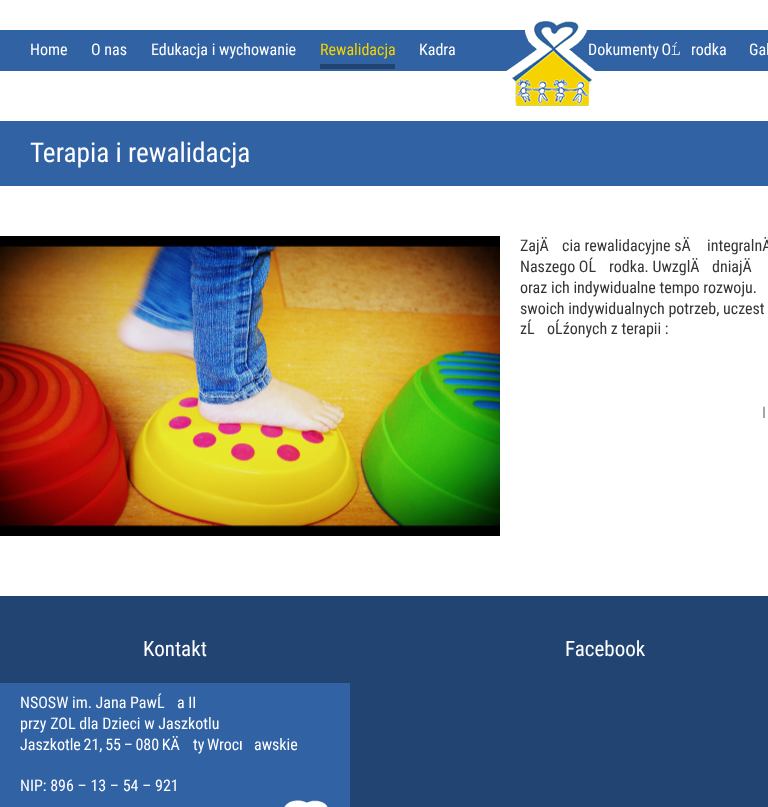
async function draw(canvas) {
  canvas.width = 768
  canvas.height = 807
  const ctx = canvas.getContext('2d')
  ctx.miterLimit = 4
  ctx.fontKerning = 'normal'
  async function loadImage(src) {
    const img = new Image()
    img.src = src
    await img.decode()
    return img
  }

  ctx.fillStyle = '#fff'
  ctx.fillRect(0, 0, 768, 807)
  ctx.fillStyle = '#3162a4'
  ctx.fillRect(0, 30, 768, 41)
  ctx.wordSpacing = '-1px'
  ctx.font = '16px Roboto Condensed'
  ctx.fillStyle = '#fff'
  ctx.fillText('Dokumenty O', 588, 55)
  ctx.drawImage(await loadImage('image0.png'), 506, 21, 90, 85)
  ctx.wordSpacing = '0px'
  ctx.fillText('Home', 30, 55)
  ctx.fillText('O nas', 91, 55)
  ctx.fillText('Edukacja i wychowanie', 151, 55)
  ctx.fillStyle = '#f6d200'
  ctx.fillText('Rewalidacja', 320, 55)
  ctx.fillStyle = '#224472'
  ctx.fillRect(320, 64, 75, 5)
  ctx.fillStyle = '#fff'
  ctx.fillText('Kadra', 419, 55)
  ctx.font = '16px Cutive Mono'
  ctx.fillText('Ĺ', 671, 55)
  ctx.font = '16px Roboto Condensed'
  ctx.fillText('rodka', 691, 55)
  ctx.fillText('Gal', 749, 55)
  ctx.fillStyle = '#3162a4'
  ctx.fillRect(0, 121, 768, 65)
  ctx.font = '27.25px Roboto Condensed'
  ctx.fillStyle = '#fff'
  ctx.fillText('Terapia i rewalidacja', 30, 162)
  ctx.drawImage(await loadImage('image1.png'), 0, 236, 500, 300)
  ctx.font = '16px Roboto Condensed'
  ctx.fillStyle = '#343434'
  ctx.fillText('ZajÄ', 520, 251)
  ctx.fillText('cia rewalidacyjne sÄ', 562, 251)
  ctx.fillText('integralnÄ', 707, 251)
  ctx.fillText('Naszego OĹ', 520, 272)
  ctx.fillText('rodka. UwzglÄ', 609, 272)
  ctx.fillText('dniajÄ', 712, 272)
  ctx.fillText('oraz ich indywidualne tempo rozwoju.', 520, 293)
  ctx.fillText('swoich indywidualnych potrzeb, uczest', 520, 314)
  ctx.fillText('zĹ', 520, 334)
  ctx.fillText('oĹźonych z terapii :', 547, 334)
  ctx.fillStyle = '#868686'
  ctx.fillText('I', 762, 418)
  ctx.fillStyle = '#224472'
  ctx.fillRect(0, 596, 768, 211)
  ctx.fillStyle = '#3162a4'
  ctx.fillRect(0, 683, 350, 124)
  ctx.font = '21px Roboto Condensed'
  ctx.fillStyle = '#fff'
  ctx.fillText('Kontakt', 143, 656)
  ctx.font = '16px Roboto Condensed'
  ctx.fillText('NSOSW im. Jana PawĹ', 20, 708)
  ctx.fillText('a II', 177, 708)
  ctx.fillText('przy ZOL dla Dzieci w Jaszkotlu', 20, 729)
  ctx.wordSpacing = '-1px'
  ctx.fillText('Jaszkotle 21, 55 – 080 KÄ', 20, 750)
  ctx.fillText('ty Wroc', 193, 750)
  ctx.wordSpacing = '0px'
  ctx.font = '16px Wavefont'
  ctx.fillText('Ĺ', 240, 750)
  ctx.font = '16px Roboto Condensed'
  ctx.fillText('awskie', 254, 750)
  ctx.fillText('NIP: 896 – 13 – 54 – 921', 20, 791)
  ctx.drawImage(await loadImage('image2.png'), 284, 800, 44, 7)
  ctx.font = '21px Roboto Condensed'
  ctx.fillText('Facebook', 565, 656)
}

draw(document.querySelector('canvas'))
